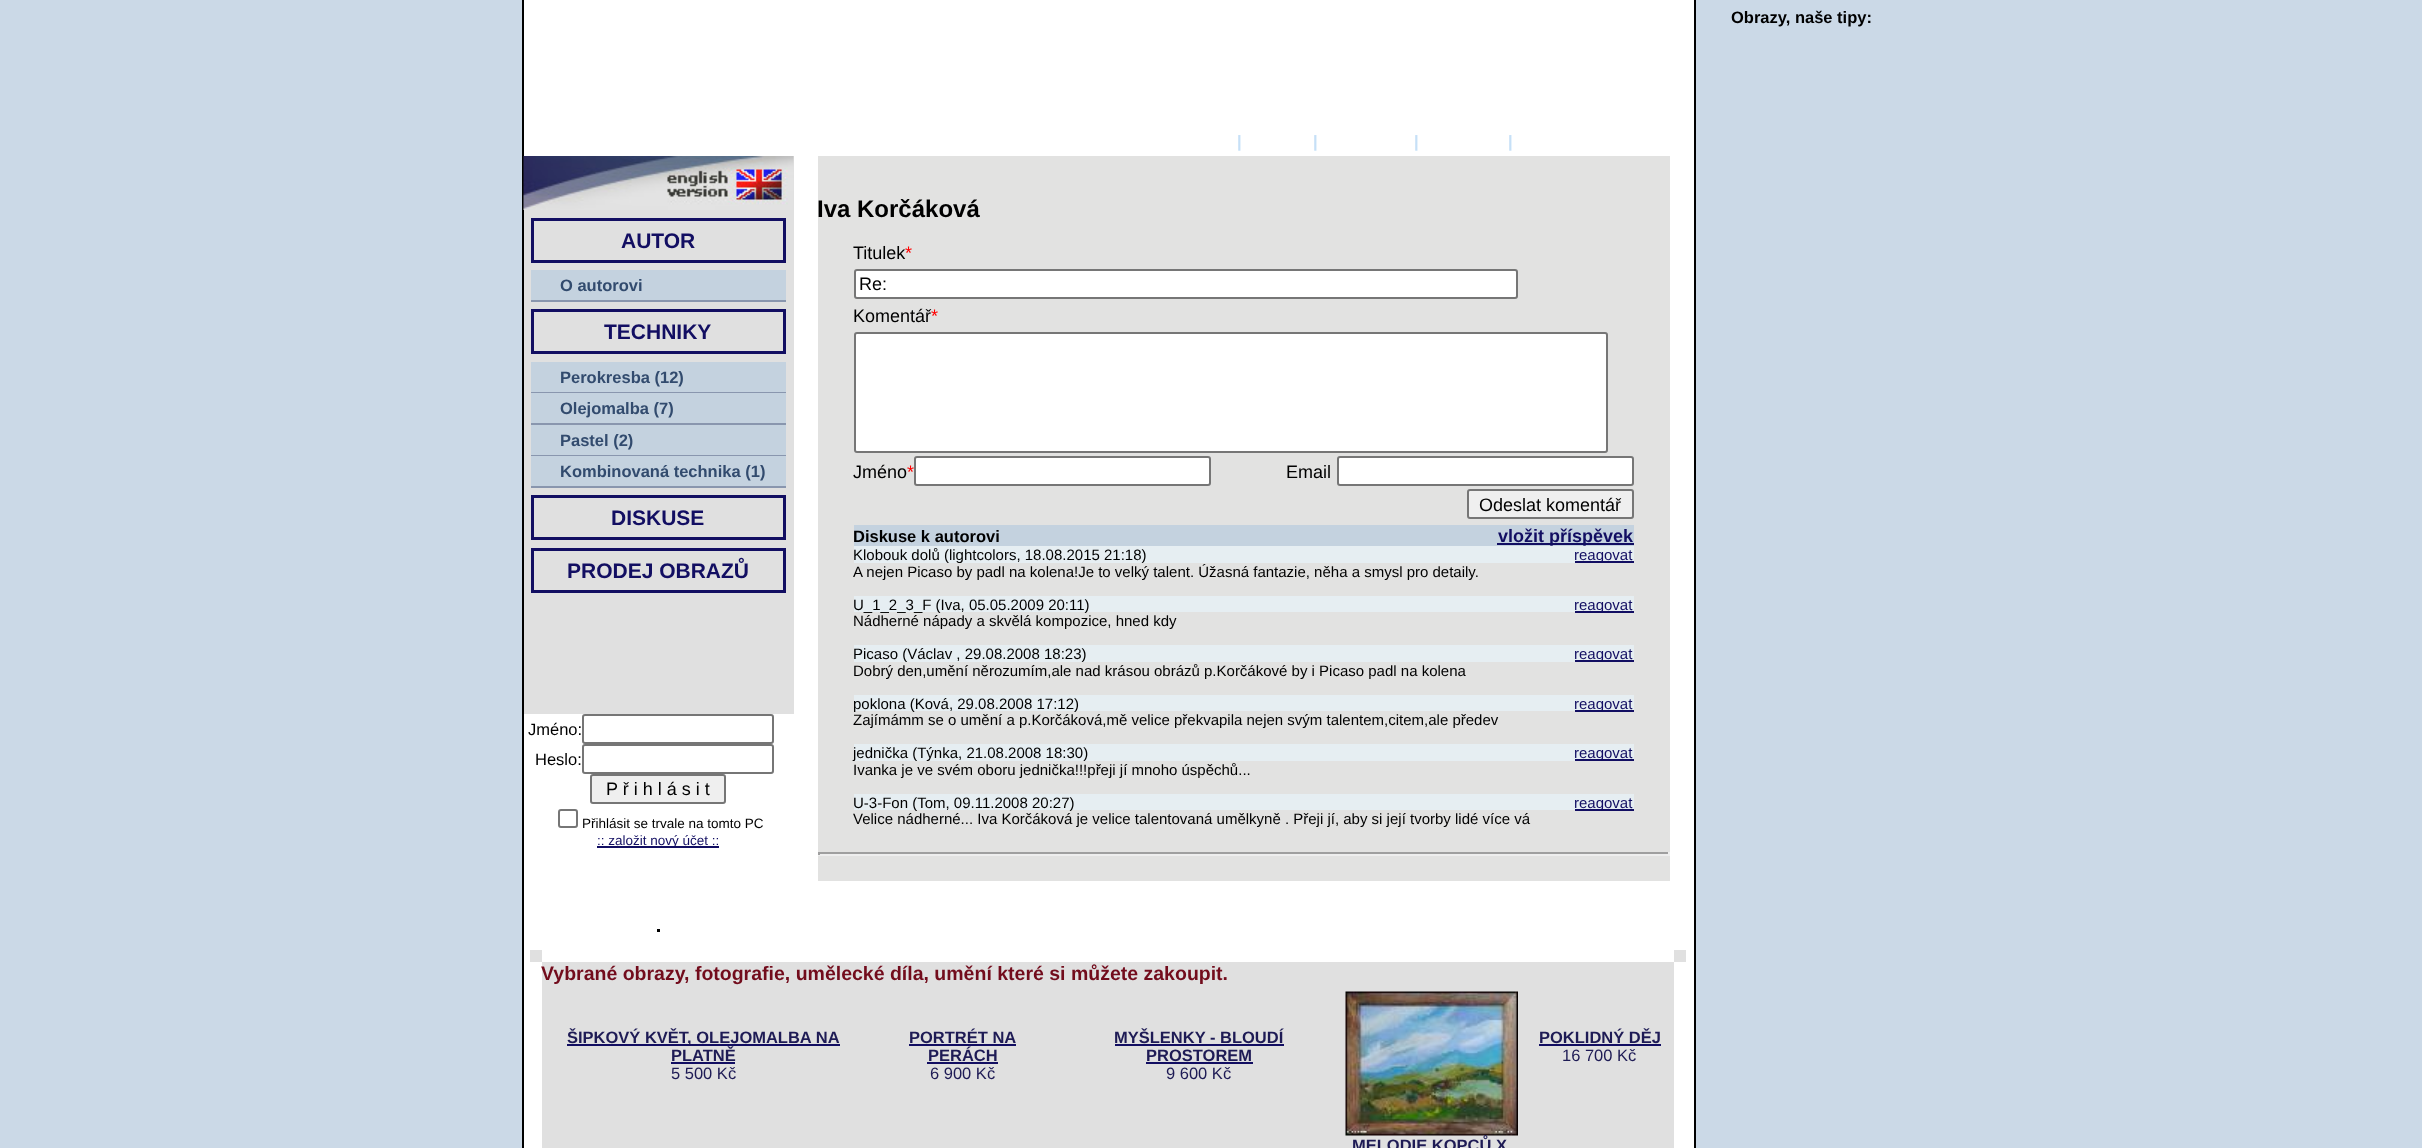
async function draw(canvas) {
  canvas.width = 2422
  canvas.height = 1148
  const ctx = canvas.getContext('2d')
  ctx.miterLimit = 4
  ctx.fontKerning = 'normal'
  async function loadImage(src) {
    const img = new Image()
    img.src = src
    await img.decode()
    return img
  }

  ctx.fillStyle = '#cbd9e7'
  ctx.fillRect(0, 0, 2422, 1148)
  ctx.font = 'bold 16.5px Liberation Sans'
  ctx.fillStyle = '#000'
  ctx.fillText('Obrazy, naše tipy:', 1731, 23)
  ctx.fillStyle = '#fff'
  ctx.fillRect(524, 0, 1170, 1148)
  ctx.fillStyle = '#000'
  ctx.fillRect(1694, 0, 2, 1148)
  ctx.fillRect(522, 0, 2, 1148)
  ctx.fillStyle = '#c6e0f7'
  ctx.fillText('|', 1237, 147)
  ctx.fillText('|', 1313, 147)
  ctx.fillText('|', 1414, 147)
  ctx.fillText('|', 1508, 147)
  ctx.fillStyle = '#e0e0e0'
  ctx.fillRect(524, 156, 270, 558)
  ctx.drawImage(await loadImage('image0.png'), 523, 156, 271, 54)
  ctx.strokeStyle = '#120e62'
  ctx.lineWidth = 3
  ctx.strokeRect(532.5, 219.5, 252, 42)
  ctx.font = 'bold 21px Liberation Sans'
  ctx.fillStyle = '#120e62'
  ctx.fillText('AUTOR', 621, 248)
  ctx.fillStyle = '#c4d2df'
  ctx.fillRect(531, 270, 255, 30)
  ctx.fillStyle = '#8996ae'
  ctx.fillRect(531, 300, 255, 2)
  ctx.font = 'bold 16.5px Liberation Sans'
  ctx.fillStyle = '#324b6e'
  ctx.fillText('O autorovi', 560, 291)
  ctx.strokeRect(532.5, 310.5, 252, 42)
  ctx.font = 'bold 21px Liberation Sans'
  ctx.fillStyle = '#120e62'
  ctx.fillText('TECHNIKY', 604, 339)
  ctx.fillStyle = '#c4d2df'
  ctx.fillRect(531, 362, 255, 30)
  ctx.fillStyle = '#8996ae'
  ctx.fillRect(531, 392, 255, 1)
  ctx.font = 'bold 16.5px Liberation Sans'
  ctx.fillStyle = '#324b6e'
  ctx.fillText('Perokresba (12)', 560, 383)
  ctx.fillStyle = '#c4d2df'
  ctx.fillRect(531, 393, 255, 30)
  ctx.fillStyle = '#8996ae'
  ctx.fillRect(531, 423, 255, 2)
  ctx.fillStyle = '#324b6e'
  ctx.fillText('Olejomalba (7)', 560, 414)
  ctx.fillStyle = '#c4d2df'
  ctx.fillRect(531, 425, 255, 30)
  ctx.fillStyle = '#8996ae'
  ctx.fillRect(531, 455, 255, 1)
  ctx.fillStyle = '#324b6e'
  ctx.fillText('Pastel (2)', 560, 446)
  ctx.fillStyle = '#c4d2df'
  ctx.fillRect(531, 456, 255, 30)
  ctx.fillStyle = '#8996ae'
  ctx.fillRect(531, 486, 255, 2)
  ctx.fillStyle = '#324b6e'
  ctx.fillText('Kombinovaná technika (1)', 560, 477)
  ctx.strokeRect(532.5, 496.5, 252, 42)
  ctx.font = 'bold 21px Liberation Sans'
  ctx.fillStyle = '#120e62'
  ctx.fillText('DISKUSE', 611, 525)
  ctx.strokeRect(532.5, 549.5, 252, 42)
  ctx.fillText('PRODEJ OBRAZŮ', 567, 578)
  ctx.font = '16.5px Liberation Sans'
  ctx.fillStyle = '#000'
  ctx.fillText('Jméno:', 528, 735)
  ctx.beginPath()
  ctx.roundRect(583, 715, 190, 28, 2)
  ctx.strokeStyle = '#767676'
  ctx.lineWidth = 2
  ctx.stroke()
  ctx.fillText('Heslo:', 535, 765)
  ctx.beginPath()
  ctx.roundRect(583, 745, 190, 28, 2)
  ctx.stroke()
  ctx.fillStyle = '#efefef'
  ctx.beginPath()
  ctx.roundRect(591, 775, 134, 28, 2)
  ctx.fill()
  ctx.stroke()
  ctx.font = '18px Liberation Sans'
  ctx.fillStyle = '#000'
  ctx.fillText('P ř i h l á s i t', 606, 795)
  ctx.beginPath()
  ctx.roundRect(559, 810, 18, 17, 2)
  ctx.stroke()
  ctx.font = '13.5px Liberation Sans'
  ctx.fillText('Přihlásit se trvale na tomto PC', 582, 828)
  ctx.fillStyle = '#120e62'
  ctx.fillRect(597, 846, 122, 2)
  ctx.fillText(':: založit nový účet ::', 597, 845)
  ctx.fillStyle = '#000'
  ctx.fillRect(657, 929, 3, 3)
  ctx.fillStyle = '#e2e2e1'
  ctx.fillRect(818, 156, 852, 725)
  ctx.font = 'bold 24px Liberation Sans'
  ctx.fillStyle = '#000'
  ctx.fillText('Iva Korčáková', 817, 217)
  ctx.font = '18px Liberation Sans'
  ctx.fillText('Titulek', 853, 259)
  ctx.fillStyle = '#f00'
  ctx.fillText('*', 905, 259)
  ctx.fillStyle = '#fff'
  ctx.beginPath()
  ctx.roundRect(855, 270, 662, 28, 2)
  ctx.fill()
  ctx.stroke()
  ctx.fillStyle = '#000'
  ctx.fillText('Re:', 859, 290)
  ctx.fillText('Komentář', 853, 322)
  ctx.fillStyle = '#f00'
  ctx.fillText('*', 931, 322)
  ctx.fillStyle = '#fff'
  ctx.beginPath()
  ctx.roundRect(855, 333, 752, 119, 2)
  ctx.fill()
  ctx.stroke()
  ctx.fillStyle = '#000'
  ctx.fillText('Jméno', 853, 478)
  ctx.fillStyle = '#f00'
  ctx.fillText('*', 907, 478)
  ctx.fillStyle = '#fff'
  ctx.beginPath()
  ctx.roundRect(915, 457, 295, 28, 2)
  ctx.fill()
  ctx.stroke()
  ctx.fillStyle = '#000'
  ctx.fillText('Email', 1286, 478)
  ctx.fillStyle = '#fff'
  ctx.beginPath()
  ctx.roundRect(1338, 457, 295, 28, 2)
  ctx.fill()
  ctx.stroke()
  ctx.fillStyle = '#efefef'
  ctx.beginPath()
  ctx.roundRect(1468, 490, 165, 28, 2)
  ctx.fill()
  ctx.stroke()
  ctx.fillStyle = '#000'
  ctx.fillText('Odeslat komentář', 1479, 511)
  ctx.fillStyle = '#c4d2df'
  ctx.fillRect(854, 525, 780, 21)
  ctx.font = 'bold 16.5px Liberation Sans'
  ctx.fillStyle = '#000'
  ctx.fillText('Diskuse k autorovi', 853, 542)
  ctx.fillStyle = '#120e62'
  ctx.fillRect(1497, 543, 137, 2)
  ctx.font = 'bold 18px Liberation Sans'
  ctx.fillText('vložit příspěvek', 1498, 542)
  ctx.fillStyle = '#e6eef2'
  ctx.fillRect(854, 546, 780, 17)
  ctx.font = '15px Liberation Sans'
  ctx.fillStyle = '#000'
  ctx.fillText('Klobouk dolů (lightcolors, 18.08.2015 21:18)', 853, 560)
  ctx.fillStyle = '#120e62'
  ctx.fillRect(1575, 561, 59, 2)
  ctx.fillText('reagovat', 1574, 560)
  ctx.fillStyle = '#000'
  ctx.fillText('A nejen Picaso by padl na kolena!Je to velký talent. Úžasná fantazie, něha a smysl pro detaily.', 853, 577)
  ctx.fillStyle = '#e6eef2'
  ctx.fillRect(854, 596, 780, 16)
  ctx.fillStyle = '#000'
  ctx.fillText('U_1_2_3_F (Iva, 05.05.2009 20:11)', 853, 610)
  ctx.fillStyle = '#120e62'
  ctx.fillRect(1575, 611, 59, 2)
  ctx.fillText('reagovat', 1574, 610)
  ctx.fillStyle = '#000'
  ctx.fillText('Nádherné nápady a skvělá kompozice, hned kdy', 853, 626)
  ctx.fillStyle = '#e6eef2'
  ctx.fillRect(854, 645, 780, 17)
  ctx.fillStyle = '#000'
  ctx.fillText('Picaso (Václav , 29.08.2008 18:23)', 853, 659)
  ctx.fillStyle = '#120e62'
  ctx.fillRect(1575, 660, 59, 2)
  ctx.fillText('reagovat', 1574, 659)
  ctx.fillStyle = '#000'
  ctx.fillText('Dobrý den,umění něrozumím,ale nad krásou obrázů p.Korčákové by i Picaso padl na kolena', 853, 676)
  ctx.fillStyle = '#e6eef2'
  ctx.fillRect(854, 695, 780, 16)
  ctx.fillStyle = '#000'
  ctx.fillText('poklona (Ková, 29.08.2008 17:12)', 853, 709)
  ctx.fillStyle = '#120e62'
  ctx.fillRect(1575, 710, 59, 2)
  ctx.fillText('reagovat', 1574, 709)
  ctx.fillStyle = '#000'
  ctx.fillText('Zajímámm se o umění a p.Korčáková,mě velice překvapila nejen svým talentem,citem,ale předev', 853, 725)
  ctx.fillStyle = '#e6eef2'
  ctx.fillRect(854, 744, 780, 17)
  ctx.fillStyle = '#000'
  ctx.fillText('jednička (Týnka, 21.08.2008 18:30)', 853, 758)
  ctx.fillStyle = '#120e62'
  ctx.fillRect(1575, 759, 59, 2)
  ctx.fillText('reagovat', 1574, 758)
  ctx.fillStyle = '#000'
  ctx.fillText('Ivanka je ve svém oboru jednička!!!přeji jí mnoho úspěchů...', 853, 775)
  ctx.fillStyle = '#e6eef2'
  ctx.fillRect(854, 794, 780, 16)
  ctx.fillStyle = '#000'
  ctx.fillText('U-3-Fon (Tom, 09.11.2008 20:27)', 853, 808)
  ctx.fillStyle = '#120e62'
  ctx.fillRect(1575, 809, 59, 2)
  ctx.fillText('reagovat', 1574, 808)
  ctx.fillStyle = '#000'
  ctx.fillText('Velice nádherné... Iva Korčáková je velice talentovaná umělkyně . Přeji jí, aby si její tvorby lidé více vá', 853, 824)
  ctx.fillStyle = '#9f9f9f'
  ctx.fillRect(818, 852, 852, 2)
  ctx.fillStyle = '#eee'
  ctx.fillRect(1668, 852, 2, 3)
  ctx.fillRect(818, 854, 852, 2)
  ctx.fillStyle = '#9f9f9f'
  ctx.fillRect(818, 852, 2, 3)
  ctx.fillStyle = '#e0e0e0'
  ctx.fillRect(530, 950, 12, 12)
  ctx.fillRect(1674, 950, 12, 12)
  ctx.fillRect(542, 962, 1132, 22)
  ctx.fillRect(542, 984, 1132, 164)
  ctx.font = 'bold 19.5px Liberation Sans'
  ctx.fillStyle = '#720c1c'
  ctx.fillText('Vybrané obrazy, fotografie, umělecké díla, umění které si můžete zakoupit.', 541, 980)
  ctx.fillStyle = '#120e62'
  ctx.fillRect(567, 1044, 273, 2)
  ctx.font = 'bold 16.5px Liberation Sans'
  ctx.fillStyle = '#1e1b55'
  ctx.fillText('ŠIPKOVÝ KVĚT, OLEJOMALBA NA', 567, 1043)
  ctx.fillText('PLATNĚ', 671, 1061)
  ctx.fillStyle = '#120e62'
  ctx.fillRect(671, 1062, 64, 2)
  ctx.font = '16.5px Liberation Sans'
  ctx.fillStyle = '#1e1b55'
  ctx.fillText('5 500 Kč', 671, 1079)
  ctx.font = 'bold 16.5px Liberation Sans'
  ctx.fillText('PORTRÉT NA', 909, 1043)
  ctx.fillStyle = '#120e62'
  ctx.fillRect(909, 1044, 107, 2)
  ctx.fillStyle = '#1e1b55'
  ctx.fillText('PERÁCH', 928, 1061)
  ctx.fillStyle = '#120e62'
  ctx.fillRect(927, 1062, 71, 2)
  ctx.font = '16.5px Liberation Sans'
  ctx.fillStyle = '#1e1b55'
  ctx.fillText('6 900 Kč', 930, 1079)
  ctx.font = 'bold 16.5px Liberation Sans'
  ctx.fillText('MYŠLENKY - BLOUDÍ', 1114, 1043)
  ctx.fillStyle = '#120e62'
  ctx.fillRect(1115, 1044, 169, 2)
  ctx.fillStyle = '#1e1b55'
  ctx.fillText('PROSTOREM', 1146, 1061)
  ctx.fillStyle = '#120e62'
  ctx.fillRect(1146, 1062, 107, 2)
  ctx.font = '16.5px Liberation Sans'
  ctx.fillStyle = '#1e1b55'
  ctx.fillText('9 600 Kč', 1166, 1079)
  ctx.font = 'bold 16.5px Liberation Sans'
  ctx.fillText('POKLIDNÝ DĚJ', 1539, 1043)
  ctx.fillStyle = '#120e62'
  ctx.fillRect(1539, 1044, 122, 2)
  ctx.font = '16.5px Liberation Sans'
  ctx.fillStyle = '#1e1b55'
  ctx.fillText('16 700 Kč', 1562, 1061)
  ctx.drawImage(await loadImage('image1.png'), 1345, 991, 173, 145)
  ctx.font = 'bold 16.5px Liberation Sans'
  ctx.fillText('MELODIE KOPCŮ X', 1352, 1151)
}

draw(document.querySelector('canvas'))
